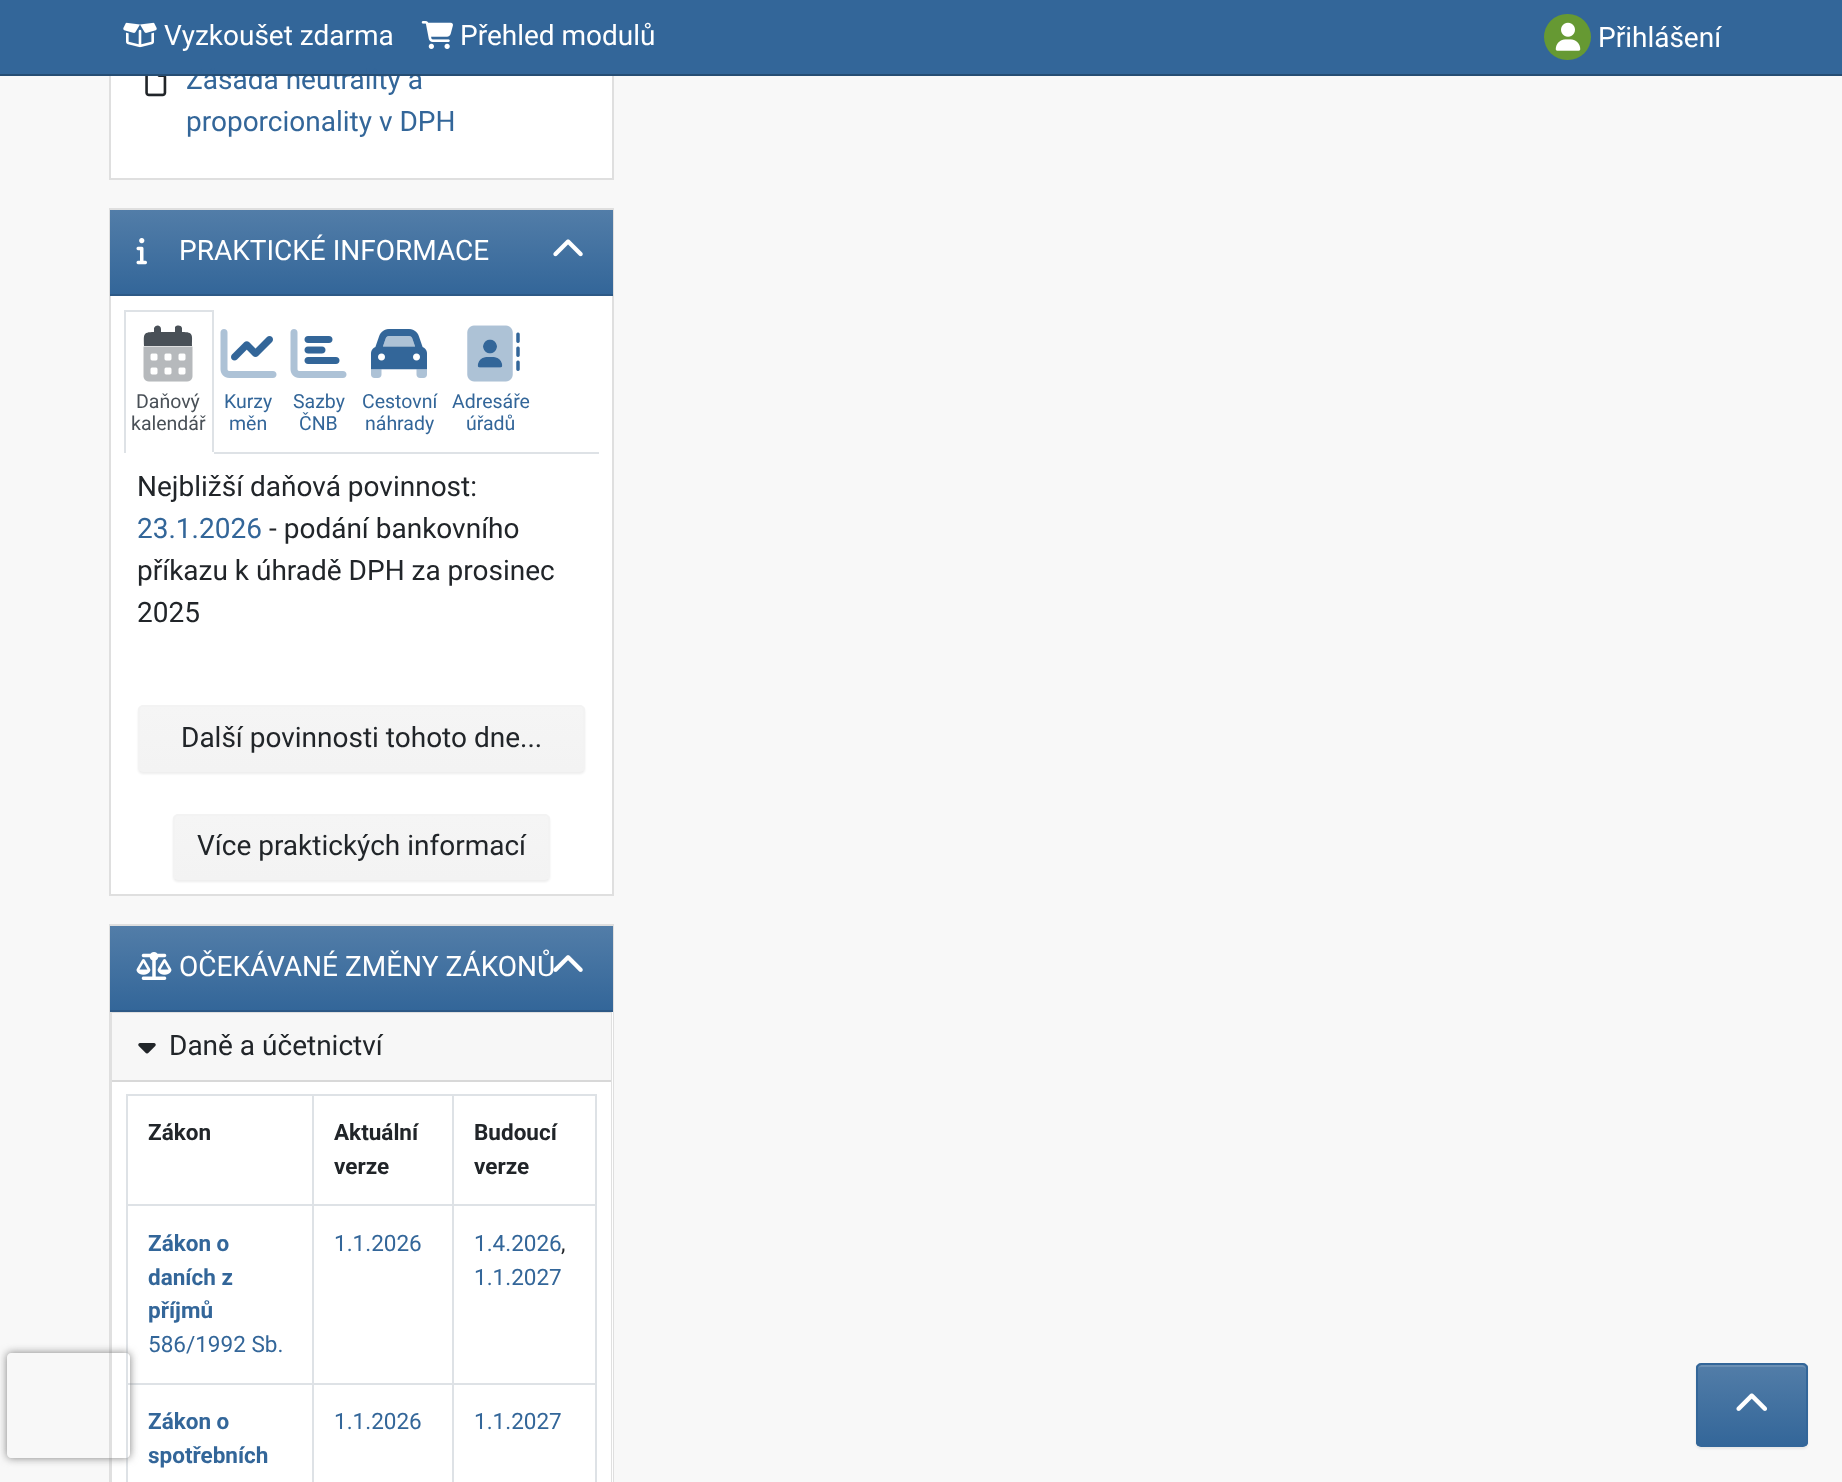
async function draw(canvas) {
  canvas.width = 1842
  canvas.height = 1482
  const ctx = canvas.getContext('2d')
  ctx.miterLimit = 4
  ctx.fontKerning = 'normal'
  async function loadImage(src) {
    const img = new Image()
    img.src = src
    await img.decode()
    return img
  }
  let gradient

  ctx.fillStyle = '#f8f8f8'
  ctx.fillRect(0, 0, 1842, 1482)
  ctx.strokeStyle = '#dfdfdf'
  ctx.lineWidth = 2
  ctx.strokeRect(110, 925, 503, 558)
  ctx.fillStyle = '#fff'
  ctx.fillRect(110, 1012, 503, 470)
  ctx.fillStyle = '#dfdfdf'
  ctx.beginPath()
  ctx.moveTo(110, 1012)
  ctx.lineTo(612, 1012)
  ctx.lineTo(611, 1013)
  ctx.lineTo(112, 1013)
  ctx.closePath()
  ctx.fill()
  ctx.fillStyle = '#0000001f'
  ctx.beginPath()
  ctx.moveTo(110, 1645)
  ctx.lineTo(110, 1012)
  ctx.lineTo(112, 1013)
  ctx.lineTo(112, 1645)
  ctx.closePath()
  ctx.fill()
  ctx.fillStyle = '#dee2e6'
  ctx.fillRect(126, 1094, 471, 2)
  ctx.fillRect(126, 1094, 2, 388)
  ctx.fillRect(595, 1094, 2, 388)
  ctx.fillRect(452, 1383, 145, 2)
  ctx.fillRect(452, 1383, 2, 99)
  ctx.fillRect(312, 1383, 141, 2)
  ctx.fillRect(312, 1383, 2, 99)
  ctx.fillRect(126, 1383, 187, 2)
  ctx.save()
  ctx.beginPath()
  ctx.moveTo(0, 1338)
  ctx.lineTo(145, 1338)
  ctx.lineTo(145, 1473)
  ctx.lineTo(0, 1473)
  ctx.closePath()
  ctx.moveTo(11, 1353)
  ctx.lineTo(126, 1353)
  ctx.bezierCurveTo(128, 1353, 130, 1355, 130, 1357)
  ctx.lineTo(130, 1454)
  ctx.bezierCurveTo(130, 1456, 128, 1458, 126, 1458)
  ctx.lineTo(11, 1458)
  ctx.bezierCurveTo(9, 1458, 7, 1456, 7, 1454)
  ctx.lineTo(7, 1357)
  ctx.bezierCurveTo(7, 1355, 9, 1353, 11, 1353)
  ctx.closePath()
  ctx.clip('evenodd')
  ctx.fillStyle = '#808080'
  ctx.filter = 'blur(4.5px)'
  ctx.beginPath()
  ctx.roundRect(7, 1353, 123, 105, 4)
  ctx.fill()
  ctx.filter = 'none'
  ctx.restore()
  ctx.fillStyle = '#fff'
  ctx.fillRect(111, 76, 501, 102)
  ctx.strokeRect(110, -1, 503, 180)
  ctx.fillStyle = '#369'
  ctx.fillRect(0, 0, 1842, 74)
  ctx.font = '28px Roboto'
  ctx.fillText('Zásada neutrality a', 186, 89)
  ctx.fillStyle = '#264d73'
  ctx.fillRect(0, 74, 1842, 2)
  ctx.drawImage(await loadImage('image0.png'), 123, 22, 34, 26)
  ctx.fillStyle = '#fff'
  ctx.fillText('Vyzkoušet zdarma', 164, 45)
  ctx.drawImage(await loadImage('image1.png'), 421, 21, 32, 28)
  ctx.fillText('Přehled modulů', 460, 45)
  ctx.fillStyle = '#693'
  ctx.beginPath()
  ctx.roundRect(1544, 14, 47, 46, 23)
  ctx.fill()
  ctx.drawImage(await loadImage('image2.png'), 1555, 22, 26, 29)
  ctx.fillStyle = '#fff'
  ctx.fillText('Přihlášení', 1598, 47)
  ctx.drawImage(await loadImage('image3.png'), 145, 76, 22, 21)
  ctx.fillStyle = '#369'
  ctx.fillText('proporcionality v DPH', 186, 131)
  ctx.fillStyle = '#fff'
  ctx.fillRect(111, 296, 501, 598)
  ctx.strokeRect(110, 209, 503, 686)
  gradient = ctx.createLinearGradient(361, 210, 361, 294)
  gradient.addColorStop(0, '#527da8')
  gradient.addColorStop(1, '#369')
  ctx.fillStyle = gradient
  ctx.fillRect(110, 210, 503, 84)
  ctx.fillStyle = '#2d5986'
  ctx.fillRect(110, 294, 503, 2)
  ctx.drawImage(await loadImage('image4.png'), 136, 238, 11, 27)
  ctx.fillStyle = '#fff'
  ctx.fillText('PRAKTICKÉ INFORMACE', 179, 260)
  ctx.drawImage(await loadImage('image5.png'), 553, 239, 30, 18)
  ctx.fillStyle = '#dee2e6'
  ctx.fillRect(214, 452, 385, 2)
  ctx.fillRect(124, 310, 90, 2)
  ctx.fillRect(212, 310, 2, 143)
  ctx.fillStyle = '#fff'
  ctx.fillRect(212, 452, 2, 1)
  ctx.fillStyle = '#dee2e6'
  ctx.fillRect(124, 310, 2, 143)
  ctx.fillStyle = '#495057'
  ctx.beginPath()
  ctx.moveTo(161, 329)
  ctx.bezierCurveTo(161, 325, 156, 324, 154, 328)
  ctx.lineTo(154, 332)
  ctx.bezierCurveTo(142, 332, 144, 335, 144, 346)
  ctx.lineTo(192, 346)
  ctx.bezierCurveTo(192, 335, 194, 332, 182, 332)
  ctx.lineTo(182, 328)
  ctx.bezierCurveTo(181, 325, 177, 325, 175, 327)
  ctx.lineTo(175, 332)
  ctx.lineTo(161, 332)
  ctx.closePath()
  ctx.fill()
  ctx.drawImage(await loadImage('image6.png'), 143, 346, 50, 36)
  ctx.font = '19.5px Roboto'
  ctx.fillText('Daňový', 136, 408)
  ctx.fillText('kalendář', 131, 430)
  ctx.drawImage(await loadImage('image8.png'), 231, 336, 42, 25)
  ctx.drawImage(await loadImage('image7.png'), 220, 329, 57, 49)
  ctx.fillStyle = '#369'
  ctx.fillText('Kurzy', 224, 408)
  ctx.fillText('měn', 229, 430)
  ctx.drawImage(await loadImage('image10.png'), 304, 336, 36, 28)
  ctx.drawImage(await loadImage('image9.png'), 290, 329, 57, 49)
  ctx.fillText('Sazby', 293, 408)
  ctx.fillText('ČNB', 299, 430)
  ctx.drawImage(await loadImage('image11.png'), 371, 329, 56, 41)
  ctx.drawImage(await loadImage('image12.png'), 371, 336, 56, 42)
  ctx.fillText('Cestovní', 362, 408)
  ctx.fillText('náhrady', 365, 430)
  ctx.drawImage(await loadImage('image14.png'), 477, 332, 43, 39)
  ctx.drawImage(await loadImage('image13.png'), 467, 325, 46, 57)
  ctx.fillText('Adresáře', 452, 408)
  ctx.fillText('úřadů', 466, 430)
  ctx.font = '28px Roboto'
  ctx.fillStyle = '#212529'
  ctx.fillText('Nejbližší daňová povinnost:', 137, 496)
  ctx.fillStyle = '#369'
  ctx.fillText('23.1.2026', 137, 538)
  ctx.fillStyle = '#212529'
  ctx.fillText('- podání bankovního', 269, 538)
  ctx.fillText('příkazu k úhradě DPH za prosinec', 137, 580)
  ctx.fillText('2025', 137, 622)
  ctx.fillStyle = '#00000012'
  ctx.filter = 'blur(1px)'
  ctx.beginPath()
  ctx.roundRect(138, 707, 447, 67, 5)
  ctx.fill()
  ctx.filter = 'none'
  ctx.save()
  ctx.beginPath()
  ctx.roundRect(138, 705, 447, 67, 5)
  ctx.clip()
  gradient = ctx.createLinearGradient(361, 707, 361, 770)
  gradient.addColorStop(0, '#f5f5f5')
  gradient.addColorStop(1, '#f3f3f3')
  ctx.fillStyle = gradient
  ctx.fillRect(138, 707, 447, 63)
  ctx.restore()
  ctx.beginPath()
  ctx.roundRect(139, 706, 445, 65, 4)
  ctx.strokeStyle = '#f3f3f3'
  ctx.stroke()
  ctx.fillStyle = '#212529'
  ctx.fillText('Další povinnosti tohoto dne...', 181, 747)
  ctx.fillStyle = '#00000012'
  ctx.filter = 'blur(1px)'
  ctx.beginPath()
  ctx.roundRect(173, 816, 377, 66, 5)
  ctx.fill()
  ctx.filter = 'none'
  ctx.save()
  ctx.beginPath()
  ctx.roundRect(173, 814, 377, 66, 5)
  ctx.clip()
  gradient = ctx.createLinearGradient(361, 816, 361, 879)
  gradient.addColorStop(0, '#f5f5f5')
  gradient.addColorStop(1, '#f3f3f3')
  ctx.fillStyle = gradient
  ctx.fillRect(173, 816, 377, 63)
  ctx.restore()
  ctx.beginPath()
  ctx.roundRect(174, 815, 375, 64, 4)
  ctx.stroke()
  ctx.fillStyle = '#212529'
  ctx.fillText('Více praktických informací', 197, 855)
  gradient = ctx.createLinearGradient(361, 926, 361, 1010)
  gradient.addColorStop(0, '#527da8')
  gradient.addColorStop(1, '#369')
  ctx.fillStyle = gradient
  ctx.fillRect(110, 926, 503, 84)
  ctx.fillStyle = '#2d5986'
  ctx.fillRect(110, 1010, 503, 2)
  ctx.drawImage(await loadImage('image15.png'), 136, 952, 36, 28)
  ctx.fillStyle = '#fff'
  ctx.fillText('OČEKÁVANÉ ZMĚNY ZÁKONŮ', 179, 976)
  ctx.drawImage(await loadImage('image16.png'), 553, 955, 30, 17)
  ctx.fillStyle = '#0000001f'
  ctx.beginPath()
  ctx.moveTo(612, 1012)
  ctx.lineTo(612, 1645)
  ctx.lineTo(611, 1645)
  ctx.lineTo(611, 1013)
  ctx.closePath()
  ctx.fill()
  ctx.fillStyle = '#f7f7f7'
  ctx.fillRect(112, 1013, 499, 67)
  ctx.fillStyle = '#d8d8d8'
  ctx.fillRect(112, 1080, 499, 2)
  ctx.drawImage(await loadImage('image17.png'), 138, 1043, 18, 11)
  ctx.fillStyle = '#212529'
  ctx.fillText('Daně a účetnictví', 169, 1055)
  ctx.font = 'bold 22.5px Roboto'
  ctx.fillText('Zákon', 148, 1140)
  ctx.fillStyle = '#dee2e6'
  ctx.fillRect(452, 1204, 145, 2)
  ctx.fillRect(452, 1204, 2, 180)
  ctx.fillRect(312, 1204, 141, 2)
  ctx.fillRect(312, 1204, 2, 180)
  ctx.fillRect(126, 1204, 187, 2)
  ctx.fillRect(312, 1094, 2, 112)
  ctx.fillStyle = '#212529'
  ctx.fillText('Aktuální', 334, 1140)
  ctx.fillText('verze', 334, 1174)
  ctx.fillStyle = '#dee2e6'
  ctx.fillRect(452, 1094, 2, 112)
  ctx.fillStyle = '#212529'
  ctx.fillText('Budoucí', 474, 1140)
  ctx.fillText('verze', 474, 1174)
  ctx.fillStyle = '#369'
  ctx.fillText('Zákon o', 148, 1251)
  ctx.fillText('daních z', 148, 1285)
  ctx.fillText('příjmů', 148, 1318)
  ctx.font = '22.5px Roboto'
  ctx.fillText('586/1992 Sb.', 148, 1352)
  ctx.fillText('1.1.2026', 334, 1251)
  ctx.fillText('1.4.2026', 474, 1251)
  ctx.fillStyle = '#212529'
  ctx.fillText(',', 561, 1251)
  ctx.fillStyle = '#369'
  ctx.fillText('1.1.2027', 474, 1285)
  ctx.font = 'bold 22.5px Roboto'
  ctx.fillText('Zákon o', 148, 1429)
  ctx.fillText('spotřebních', 148, 1463)
  ctx.font = '22.5px Roboto'
  ctx.fillText('1.1.2026', 334, 1429)
  ctx.fillText('1.1.2027', 474, 1429)
  ctx.fillStyle = '#00000012'
  ctx.filter = 'blur(1px)'
  ctx.beginPath()
  ctx.roundRect(1696, 1365, 112, 84, 5)
  ctx.fill()
  ctx.filter = 'none'
  ctx.save()
  ctx.beginPath()
  ctx.roundRect(1696, 1363, 112, 84, 5)
  ctx.clip()
  gradient = ctx.createLinearGradient(1752, 1365, 1752, 1446)
  gradient.addColorStop(0, '#527da8')
  gradient.addColorStop(1, '#369')
  ctx.fillStyle = gradient
  ctx.fillRect(1696, 1365, 112, 81)
  ctx.restore()
  ctx.fillStyle = '#ffffff26'
  ctx.beginPath()
  ctx.moveTo(1701, 1367)
  ctx.lineTo(1802, 1367)
  ctx.bezierCurveTo(1804, 1367, 1806, 1368, 1806, 1370)
  ctx.bezierCurveTo(1806, 1361, 1789, 1365, 1785, 1365)
  ctx.lineTo(1719, 1365)
  ctx.bezierCurveTo(1715, 1365, 1698, 1361, 1698, 1370)
  ctx.bezierCurveTo(1698, 1368, 1699, 1367, 1701, 1367)
  ctx.closePath()
  ctx.fill()
  ctx.beginPath()
  ctx.roundRect(1697, 1364, 110, 82, 4)
  ctx.strokeStyle = '#369'
  ctx.stroke()
  ctx.drawImage(await loadImage('image18.png'), 1736, 1393, 31, 18)
}

draw(document.querySelector('canvas'))
